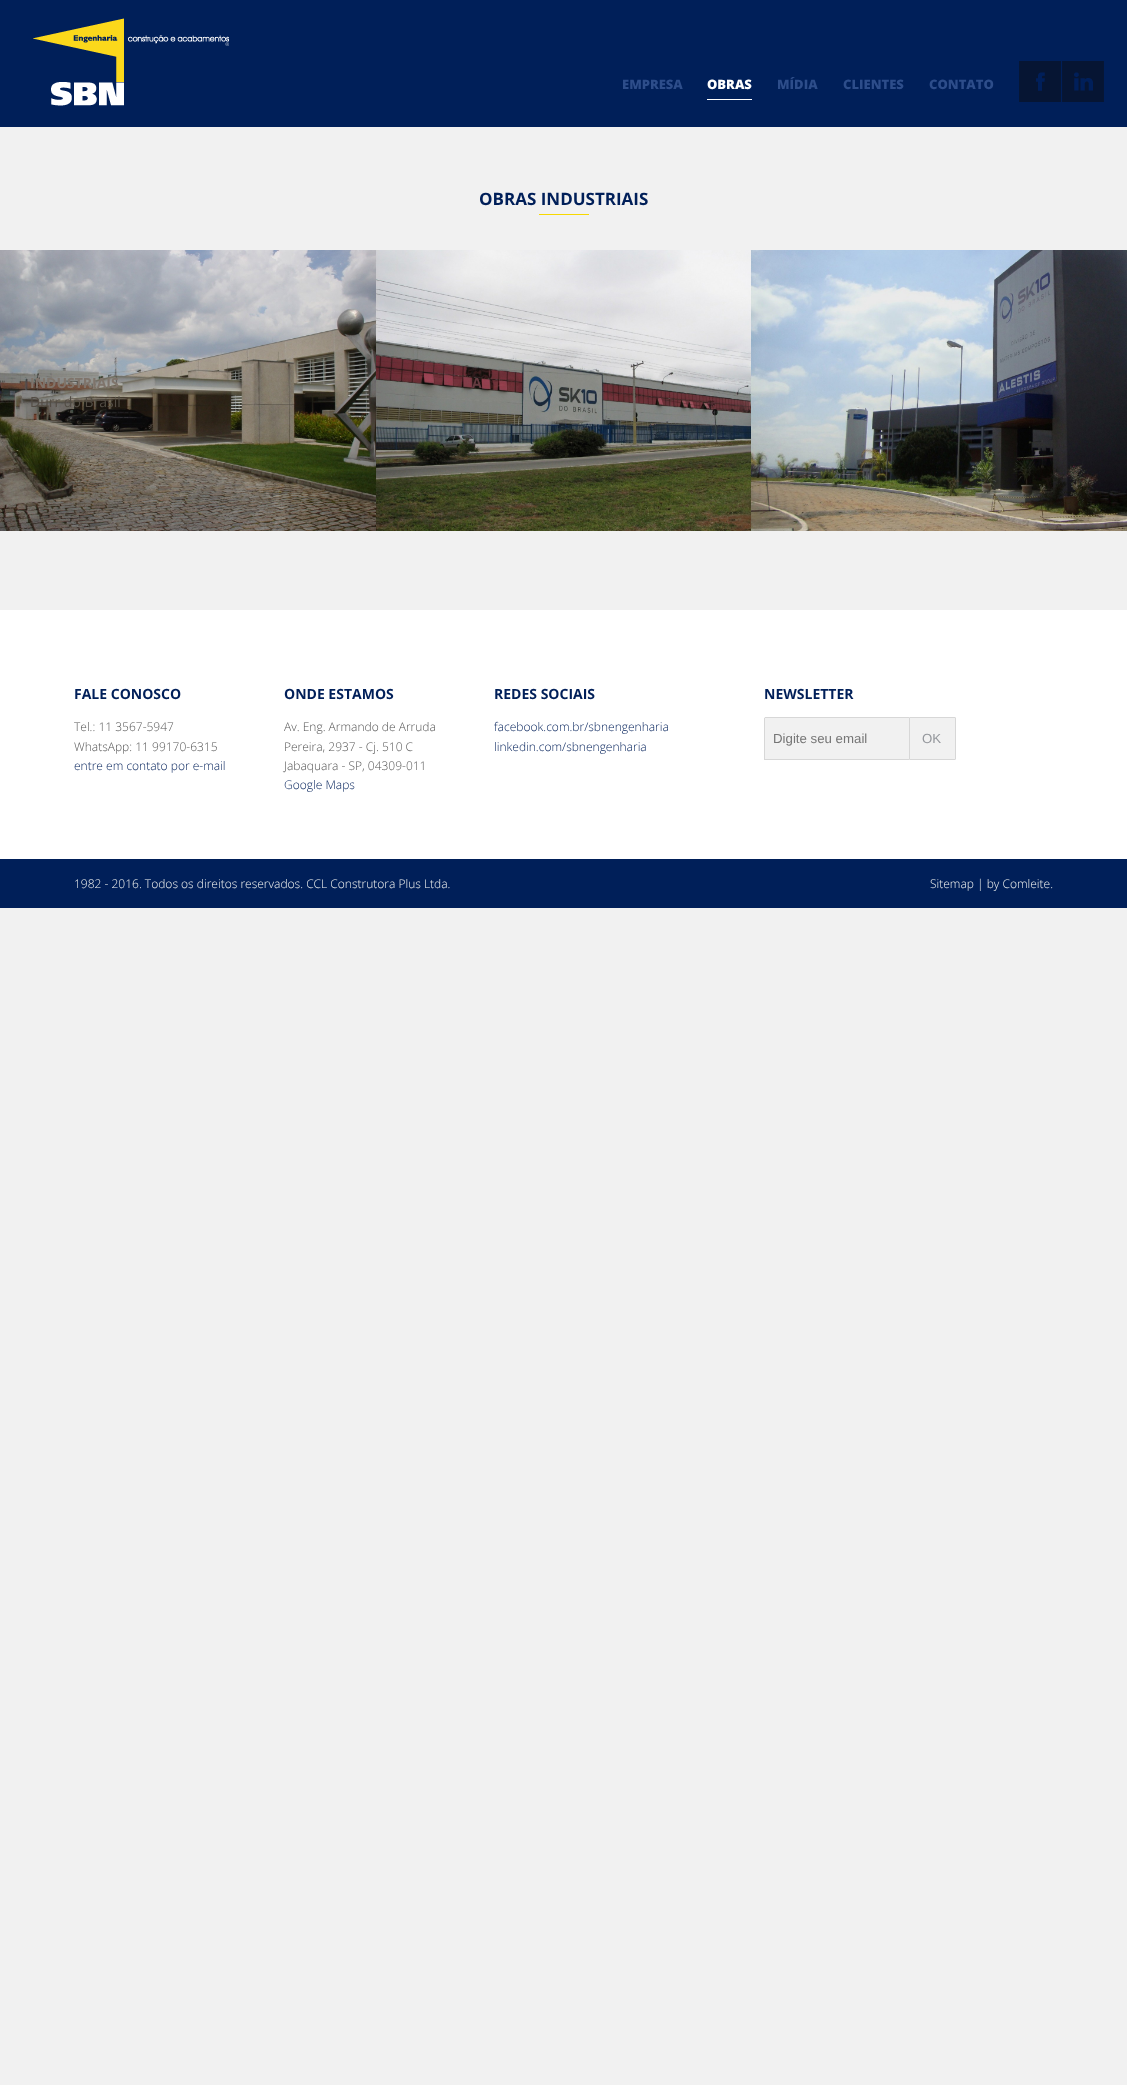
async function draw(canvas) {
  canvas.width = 1127
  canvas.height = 2085
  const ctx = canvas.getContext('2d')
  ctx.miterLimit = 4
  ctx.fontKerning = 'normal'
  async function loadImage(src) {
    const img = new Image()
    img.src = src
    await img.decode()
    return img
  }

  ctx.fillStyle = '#f1f1f1'
  ctx.fillRect(0, 0, 1127, 2085)
  ctx.fillStyle = '#001f59'
  ctx.fillRect(0, 0, 1127, 127)
  ctx.drawImage(await loadImage('image0.png'), 33, 18, 196, 88)
  ctx.font = '800 13px Open Sans'
  ctx.fillStyle = '#2d4d8a'
  ctx.fillText('EMPRESA', 622, 89)
  ctx.fillStyle = '#fff'
  ctx.fillRect(707, 99, 45, 1)
  ctx.fillText('OBRAS', 707, 89)
  ctx.fillStyle = '#2d4d8a'
  ctx.fillText('MÍDIA', 777, 89)
  ctx.fillText('CLIENTES', 843, 89)
  ctx.fillText('CONTATO', 929, 89)
  ctx.drawImage(await loadImage('image1.png'), 1019, 61, 42, 41)
  ctx.drawImage(await loadImage('image2.png'), 1062, 61, 42, 41)
  ctx.font = 'bold 17px Open Sans'
  ctx.fillStyle = '#001f59'
  ctx.fillText('OBRAS INDUSTRIAIS', 479, 205)
  ctx.fillStyle = '#f7d800'
  ctx.fillRect(539, 214, 50, 1)
  ctx.drawImage(await loadImage('image3.png'), 0, 250, 376, 281)
  ctx.font = 'bold 14px Open Sans'
  ctx.fillStyle = '#7f746b'
  ctx.fillText('INDUSTRIAIS', 30, 388)
  ctx.font = '14px Open Sans'
  ctx.fillStyle = '#534d45'
  ctx.fillText('Durr do Brasil', 30, 407)
  ctx.drawImage(await loadImage('image4.png'), 376, 250, 375, 281)
  ctx.font = 'bold 14px Open Sans'
  ctx.fillStyle = '#643b40'
  ctx.fillText('A', 472, 388)
  ctx.drawImage(await loadImage('image5.png'), 751, 250, 376, 281)
  ctx.fillStyle = '#fff'
  ctx.fillRect(0, 610, 1127, 249)
  ctx.fillStyle = '#001f59'
  ctx.fillText('FALE CONOSCO', 74, 699)
  ctx.font = '300 12px Open Sans'
  ctx.fillStyle = '#555'
  ctx.fillText('Tel.: 11 3567-5947', 74, 731)
  ctx.fillText('WhatsApp: 11 99170-6315', 74, 751)
  ctx.fillStyle = '#001f59'
  ctx.fillText('entre em contato por e-mail', 74, 770)
  ctx.font = 'bold 14px Open Sans'
  ctx.fillText('ONDE ESTAMOS', 284, 699)
  ctx.font = '300 12px Open Sans'
  ctx.fillStyle = '#555'
  ctx.fillText('Av. Eng. Armando de Arruda', 284, 731)
  ctx.fillText('Pereira, 2937 - Cj. 510 C', 284, 751)
  ctx.fillText('Jabaquara - SP, 04309-011', 284, 770)
  ctx.fillStyle = '#001f59'
  ctx.fillText('Google Maps', 284, 789)
  ctx.font = 'bold 14px Open Sans'
  ctx.fillText('REDES SOCIAIS', 494, 699)
  ctx.font = '300 12px Open Sans'
  ctx.fillText('facebook.com.br/sbnengenharia', 494, 731)
  ctx.fillText('linkedin.com/sbnengenharia', 494, 751)
  ctx.font = 'bold 14px Open Sans'
  ctx.fillText('NEWSLETTER', 764, 699)
  ctx.fillStyle = '#f1f1f1'
  ctx.beginPath()
  ctx.roundRect(764, 717, 145, 43, [1, 0, 0, 1])
  ctx.fill()
  ctx.fillStyle = '#d7d7d7'
  ctx.fillRect(765, 717, 144, 1)
  ctx.fillRect(765, 759, 144, 1)
  ctx.fillRect(764, 718, 1, 42)
  ctx.font = '13.25px Liberation Sans'
  ctx.fillStyle = '#757575'
  ctx.fillText('Digite seu email', 773, 743)
  ctx.fillStyle = '#f1f1f1'
  ctx.beginPath()
  ctx.roundRect(909.5, 717.5, 46, 42, [0, 0.5, 0.5, 0])
  ctx.fill()
  ctx.strokeStyle = '#d7d7d7'
  ctx.stroke()
  ctx.fillStyle = '#94979c'
  ctx.fillText('OK', 922, 743)
  ctx.fillStyle = '#001f59'
  ctx.fillRect(0, 859, 1127, 49)
  ctx.font = '300 12px Open Sans'
  ctx.fillStyle = '#f1f3f0'
  ctx.fillText('1982 - 2016. Todos os direitos reservados. CCL Construtora Plus Ltda.', 74, 888)
  ctx.fillText('Sitemap | by Comleite.', 930, 888)
}

draw(document.querySelector('canvas'))
